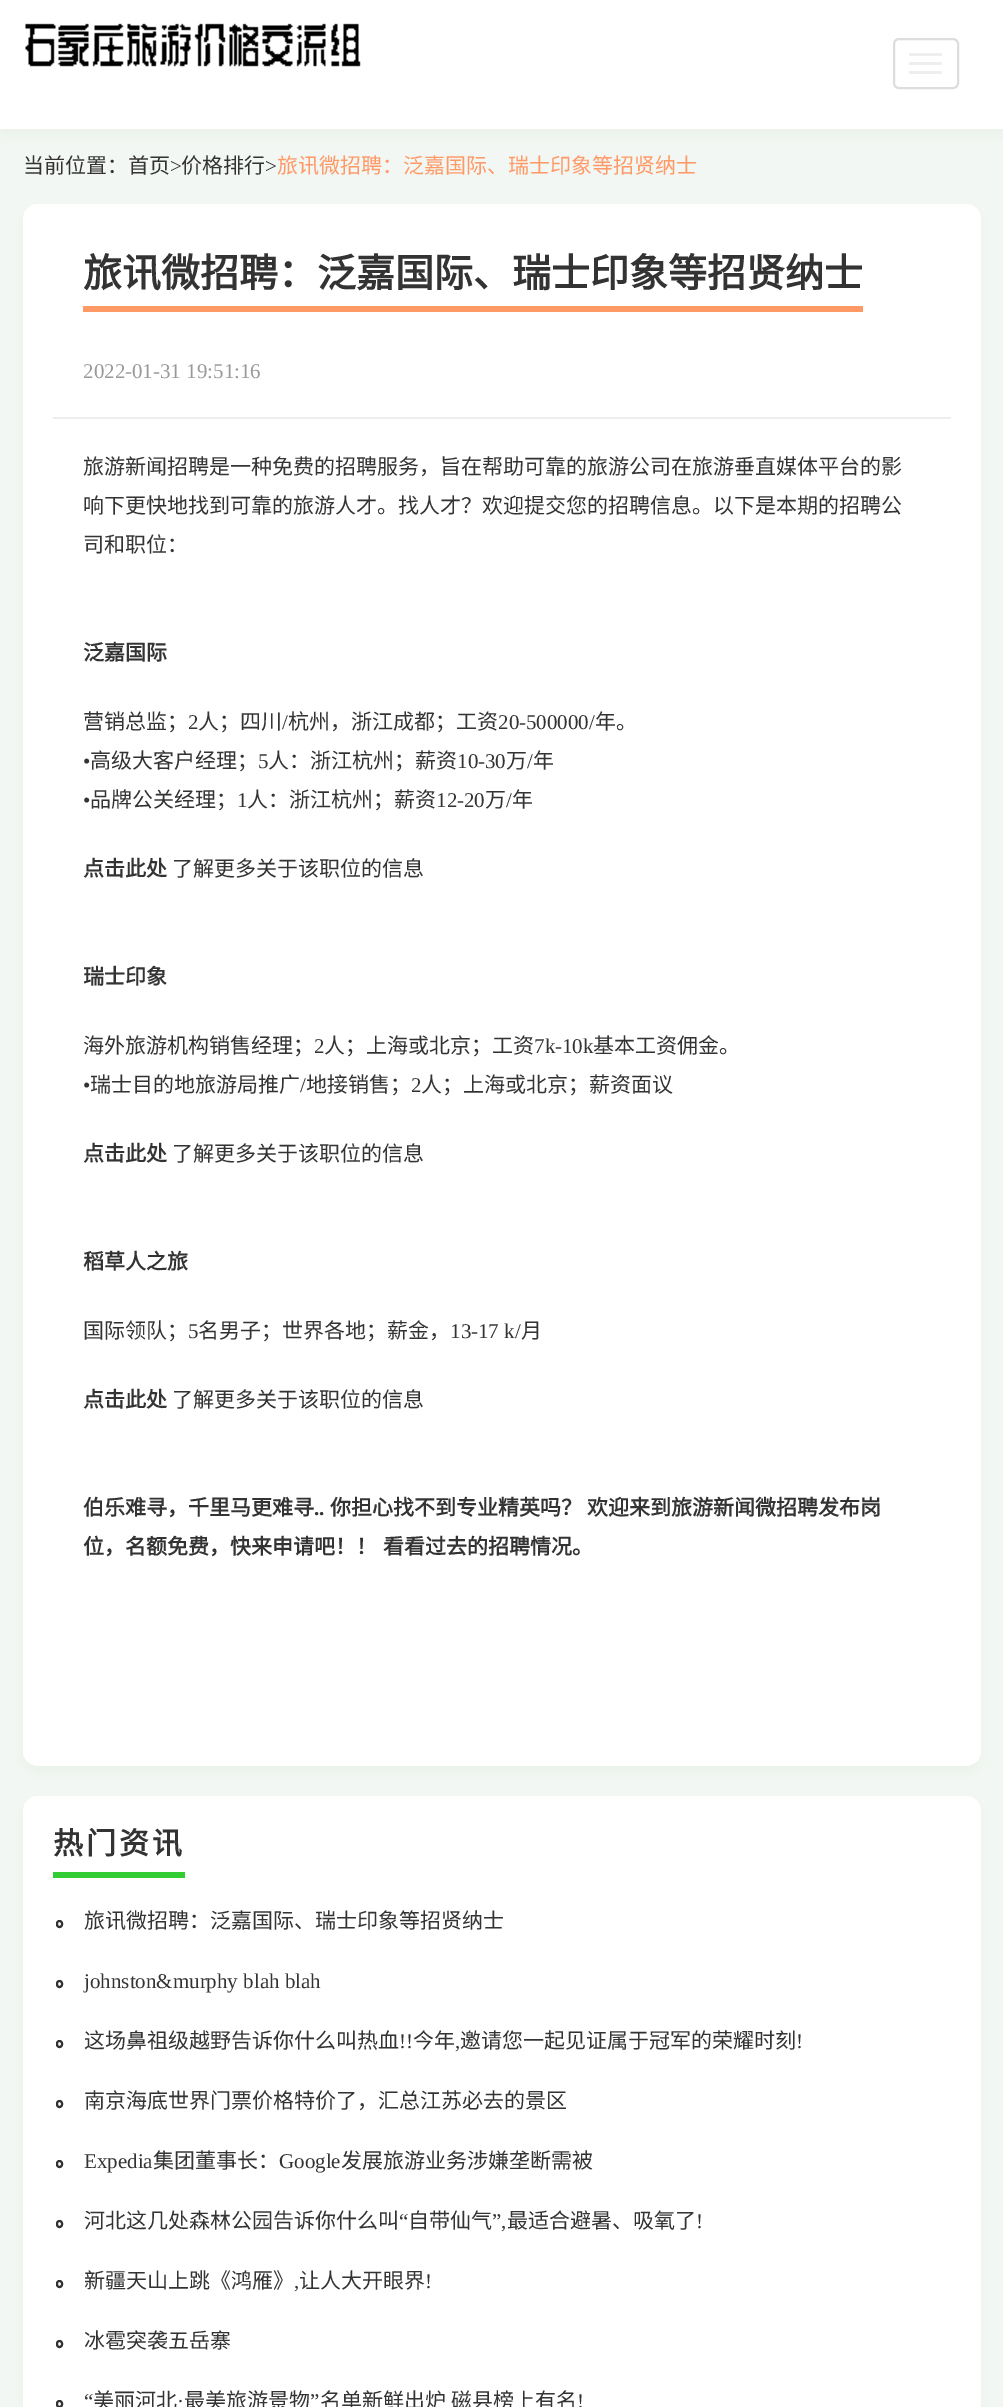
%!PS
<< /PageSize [1003 2407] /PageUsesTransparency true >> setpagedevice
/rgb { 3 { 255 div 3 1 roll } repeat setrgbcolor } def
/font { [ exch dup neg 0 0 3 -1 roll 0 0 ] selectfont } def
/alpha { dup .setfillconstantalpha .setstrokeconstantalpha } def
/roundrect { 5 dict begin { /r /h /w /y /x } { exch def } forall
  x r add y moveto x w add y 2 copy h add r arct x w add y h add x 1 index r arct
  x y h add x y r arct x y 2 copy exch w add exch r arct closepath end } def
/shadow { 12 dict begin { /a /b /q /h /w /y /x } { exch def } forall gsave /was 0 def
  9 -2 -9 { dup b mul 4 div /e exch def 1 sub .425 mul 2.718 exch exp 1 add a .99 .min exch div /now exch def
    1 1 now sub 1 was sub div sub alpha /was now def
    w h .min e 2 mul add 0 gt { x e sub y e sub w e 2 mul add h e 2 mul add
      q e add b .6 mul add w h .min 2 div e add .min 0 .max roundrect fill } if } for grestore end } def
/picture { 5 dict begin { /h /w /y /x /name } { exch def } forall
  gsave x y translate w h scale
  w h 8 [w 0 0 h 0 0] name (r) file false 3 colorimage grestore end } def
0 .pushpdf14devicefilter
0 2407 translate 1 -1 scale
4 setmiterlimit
243 247 243 rgb
0 0 1003 2407 rectfill
233 240 233 rgb
0 6 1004 129 0 6 1 shadow
255 255 255 rgb
0 0 1003 129 rectfill
(img/1.rgb) 25 23 336 44 picture
221 221 221 rgb
2 setlinewidth
894 39 64 49 5 roundrect stroke
238 238 238 rgb
909 53 33 3 1.5 roundrect fill
909 62 33 3 1.5 roundrect fill
909 71 33 3 1.5 roundrect fill
233 240 233 rgb
23 210 958 1562 15 6 1 shadow
255 255 255 rgb
23 204 958 1562 15 roundrect fill
255 153 102 rgb
83 306 780 6 rectfill
238 238 238 rgb
53 417 898 2 rectfill
233 240 233 rgb
23 1802 958 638 15 6 1 shadow
255 255 255 rgb
23 1796 958 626 15 roundrect fill
51 204 51 rgb
53 1872 132 6 rectfill
51 51 51 rgb
57 1921 5 6 2.5 roundrect stroke
57 1981 5 6 2.5 roundrect stroke
57 2041 5 6 2.5 roundrect stroke
57 2101 5 6 2.5 roundrect stroke
57 2161 5 6 2.5 roundrect stroke
57 2221 5 6 2.5 roundrect stroke
57 2281 5 6 2.5 roundrect stroke
57 2341 5 6 2.5 roundrect stroke
57 2401 5 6 2.5 roundrect stroke
/NotoSansCJKSC-Regular 21 font
23 173 moveto (当前位置：首页) show
/LiberationSerif-Regular 21 font
170 173 moveto (>) show
/NotoSansCJKSC-Regular 21 font
181 173 moveto (价格排行) show
/LiberationSerif-Regular 21 font
265 173 moveto (>) show
/NotoSansCJKSC-Regular 21 font
255 153 102 rgb
277 173 moveto (旅讯微招聘：泛嘉国际、瑞士印象等招贤纳士) show
/NotoSansCJKSC-Bold 39 font
51 51 51 rgb
83 287 moveto (旅讯微招聘：泛嘉国际、瑞士印象等招贤纳士) show
/LiberationSerif-Regular 21 font
153 153 153 rgb
83 378 moveto (2022-01-31 19:51:16) show
/NotoSansCJKSC-Regular 21 font
51 51 51 rgb
[
  [(旅游新闻招聘是一种免费的招聘服务，旨在帮助可靠的旅游公司在旅游垂直媒体平台的影) 83 474]
  [(响下更快地找到可靠的旅游人才。找人才？欢迎提交您的招聘信息。以下是本期的招聘公) 83 513]
  [(司和职位：) 83 552]
] { aload pop moveto show } forall
/NotoSansCJKSC-Bold 21 font
83 660 moveto (泛嘉国际) show
/NotoSansCJKSC-Regular 21 font
83 729 moveto (营销总监；) show
/LiberationSerif-Regular 21 font
188 729 moveto (2) show
/NotoSansCJKSC-Regular 21 font
198 729 moveto (人；四川) show
/LiberationSerif-Regular 21 font
282 729 moveto (/) show
/NotoSansCJKSC-Regular 21 font
288 729 moveto (杭州，浙江成都；工资) show
/LiberationSerif-Regular 21 font
498 729 moveto (20-500000/) show
/NotoSansCJKSC-Regular 21 font
595 729 moveto (年。) show
/LiberationSerif-Regular 21 font
83 768 moveto (•) show
/NotoSansCJKSC-Regular 21 font
90 768 moveto (高级大客户经理；) show
/LiberationSerif-Regular 21 font
258 768 moveto (5) show
/NotoSansCJKSC-Regular 21 font
268 768 moveto (人：浙江杭州；薪资) show
/LiberationSerif-Regular 21 font
457 768 moveto (10-30) show
/NotoSansCJKSC-Regular 21 font
506 768 moveto (万) show
/LiberationSerif-Regular 21 font
527 768 moveto (/) show
/NotoSansCJKSC-Regular 21 font
533 768 moveto (年) show
/LiberationSerif-Regular 21 font
83 807 moveto (•) show
/NotoSansCJKSC-Regular 21 font
90 807 moveto (品牌公关经理；) show
/LiberationSerif-Regular 21 font
237 807 moveto (1) show
/NotoSansCJKSC-Regular 21 font
247 807 moveto (人：浙江杭州；薪资) show
/LiberationSerif-Regular 21 font
436 807 moveto (12-20) show
/NotoSansCJKSC-Regular 21 font
485 807 moveto (万) show
/LiberationSerif-Regular 21 font
506 807 moveto (/) show
/NotoSansCJKSC-Regular 21 font
512 807 moveto (年) show
/NotoSansCJKSC-Bold 21 font
83 876 moveto (点击此处) show
/NotoSansCJKSC-Regular 21 font
172 876 moveto (了解更多关于该职位的信息) show
/NotoSansCJKSC-Bold 21 font
83 984 moveto (瑞士印象) show
/NotoSansCJKSC-Regular 21 font
83 1053 moveto (海外旅游机构销售经理；) show
/LiberationSerif-Regular 21 font
314 1053 moveto (2) show
/NotoSansCJKSC-Regular 21 font
324 1053 moveto (人；上海或北京；工资) show
/LiberationSerif-Regular 21 font
534 1053 moveto (7k-10k) show
/NotoSansCJKSC-Regular 21 font
593 1053 moveto (基本工资佣金。) show
/LiberationSerif-Regular 21 font
83 1092 moveto (•) show
/NotoSansCJKSC-Regular 21 font
90 1092 moveto (瑞士目的地旅游局推广) show
/LiberationSerif-Regular 21 font
300 1092 moveto (/) show
/NotoSansCJKSC-Regular 21 font
306 1092 moveto (地接销售；) show
/LiberationSerif-Regular 21 font
411 1092 moveto (2) show
/NotoSansCJKSC-Regular 21 font
421 1092 moveto (人；上海或北京；薪资面议) show
/NotoSansCJKSC-Bold 21 font
83 1161 moveto (点击此处) show
/NotoSansCJKSC-Regular 21 font
172 1161 moveto (了解更多关于该职位的信息) show
/NotoSansCJKSC-Bold 21 font
83 1269 moveto (稻草人之旅) show
/NotoSansCJKSC-Regular 21 font
83 1338 moveto (国际领队；) show
/LiberationSerif-Regular 21 font
188 1338 moveto (5) show
/NotoSansCJKSC-Regular 21 font
198 1338 moveto (名男子；世界各地；薪金，) show
/LiberationSerif-Regular 21 font
450 1338 moveto (13-17 k/) show
/NotoSansCJKSC-Regular 21 font
521 1338 moveto (月) show
/NotoSansCJKSC-Bold 21 font
83 1407 moveto (点击此处) show
/NotoSansCJKSC-Regular 21 font
172 1407 moveto (了解更多关于该职位的信息) show
/NotoSansCJKSC-Bold 21 font
83 1515 moveto (伯乐难寻，千里马更难寻) show
/LiberationSerif-Bold 21 font
314 1515 moveto (..) show
/NotoSansCJKSC-Bold 21 font
330 1515 moveto (你担心找不到专业精英吗？ 欢迎来到旅游新闻微招聘发布岗) show
83 1554 moveto 1 0 32 (位，名额免费，快来申请吧！！ 看看过去的招聘情况。) widthshow
/NotoSansCJKSC-Bold 30 font
53 1854 moveto 3 0 (热门资讯) ashow
/NotoSansCJKSC-Regular 21 font
84 1928 moveto (旅讯微招聘：泛嘉国际、瑞士印象等招贤纳士) show
/LiberationSerif-Regular 21 font
84 1988 moveto (johnston&murphy blah blah) show
/NotoSansCJKSC-Regular 21 font
84 2048 moveto (这场鼻祖级越野告诉你什么叫热血) show
/LiberationSerif-Regular 21 font
399 2048 moveto (!!) show
/NotoSansCJKSC-Regular 21 font
413 2048 moveto (今年) show
/LiberationSerif-Regular 21 font
455 2048 moveto (,) show
/NotoSansCJKSC-Regular 21 font
460 2048 moveto (邀请您一起见证属于冠军的荣耀时刻) show
/LiberationSerif-Regular 21 font
796 2048 moveto (!) show
/NotoSansCJKSC-Regular 21 font
84 2108 moveto (南京海底世界门票价格特价了，汇总江苏必去的景区) show
/LiberationSerif-Regular 21 font
84 2168 moveto (Expedia) show
/NotoSansCJKSC-Regular 21 font
153 2168 moveto (集团董事长：) show
/LiberationSerif-Regular 21 font
279 2168 moveto (Google) show
/NotoSansCJKSC-Regular 21 font
341 2168 moveto (发展旅游业务涉嫌垄断需被) show
84 2228 moveto (河北这几处森林公园告诉你什么叫) show
/LiberationSerif-Regular 21 font
399 2228 moveto (“) show
/NotoSansCJKSC-Regular 21 font
408 2228 moveto (自带仙气) show
/LiberationSerif-Regular 21 font
492 2228 moveto (”,) show
/NotoSansCJKSC-Regular 21 font
507 2228 moveto (最适合避暑、吸氧了) show
/LiberationSerif-Regular 21 font
696 2228 moveto (!) show
/NotoSansCJKSC-Regular 21 font
84 2288 moveto (新疆天山上跳《鸿雁》) show
/LiberationSerif-Regular 21 font
294 2288 moveto (,) show
/NotoSansCJKSC-Regular 21 font
299 2288 moveto (让人大开眼界) show
/LiberationSerif-Regular 21 font
425 2288 moveto (!) show
/NotoSansCJKSC-Regular 21 font
84 2348 moveto (冰雹突袭五岳寨) show
/LiberationSerif-Regular 21 font
84 2408 moveto (“) show
/NotoSansCJKSC-Regular 21 font
93 2408 moveto (美丽河北) show
/LiberationSerif-Regular 21 font
177 2408 moveto (·) show
/NotoSansCJKSC-Regular 21 font
184 2408 moveto (最美旅游景物) show
/LiberationSerif-Regular 21 font
310 2408 moveto (”) show
/NotoSansCJKSC-Regular 21 font
320 2408 moveto (名单新鲜出炉) show
451 2408 moveto (磁县榜上有名) show
/LiberationSerif-Regular 21 font
577 2408 moveto (!) show
.poppdf14devicefilter showpage
